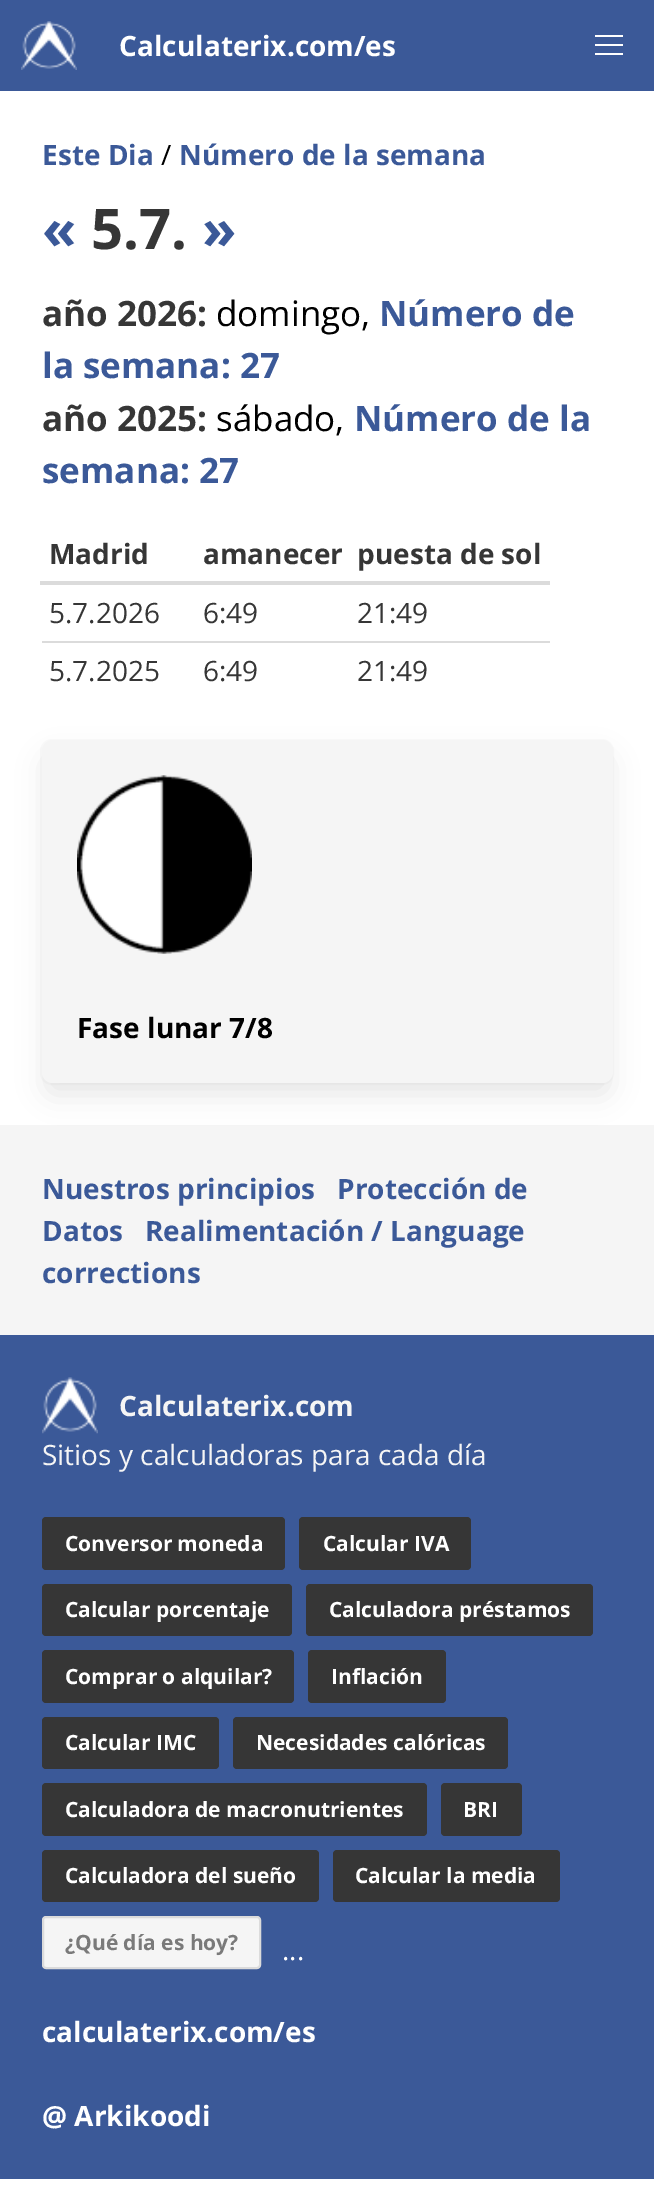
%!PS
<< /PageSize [654 2205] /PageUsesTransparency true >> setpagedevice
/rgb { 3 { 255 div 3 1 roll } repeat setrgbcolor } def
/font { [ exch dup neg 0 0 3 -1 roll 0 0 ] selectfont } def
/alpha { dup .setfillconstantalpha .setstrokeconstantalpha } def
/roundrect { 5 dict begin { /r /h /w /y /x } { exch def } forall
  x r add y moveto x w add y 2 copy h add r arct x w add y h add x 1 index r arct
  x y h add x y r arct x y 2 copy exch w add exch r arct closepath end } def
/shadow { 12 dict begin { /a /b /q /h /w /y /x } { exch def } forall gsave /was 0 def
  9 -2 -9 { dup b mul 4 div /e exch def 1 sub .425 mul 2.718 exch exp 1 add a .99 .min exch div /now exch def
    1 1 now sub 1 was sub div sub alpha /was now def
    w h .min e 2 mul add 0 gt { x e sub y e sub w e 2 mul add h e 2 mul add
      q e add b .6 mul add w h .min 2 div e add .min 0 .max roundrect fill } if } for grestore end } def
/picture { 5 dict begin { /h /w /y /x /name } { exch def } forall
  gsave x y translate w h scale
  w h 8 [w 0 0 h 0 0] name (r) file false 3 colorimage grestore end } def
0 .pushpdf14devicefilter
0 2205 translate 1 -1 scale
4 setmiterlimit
255 255 255 rgb
0 0 654 2205 rectfill
59 89 152 rgb
0 0 654 91 rectfill
(img/1.rgb) 21 21 56 49 picture
[
  [595 35 28 2 255 255 255]
  [595 44 28 2 255 255 255]
  [595 53 28 2 255 255 255]
  [40 581 510 4 219 219 219]
  [42 641 508 2 219 219 219]
] { aload pop rgb rectfill } forall
250 250 250 rgb
2 setlinewidth
41 740 572 344 11 roundrect stroke
245 245 245 rgb
0 1125 654 210 rectfill
0 0 0 rgb
46 758 563 336 7 14 0.1 shadow
245 245 245 rgb
42 740 571 343 11 roundrect fill
(img/2.rgb) 77 775 175 179 picture
59 89 152 rgb
0 1335 654 844 rectfill
(img/3.rgb) 42 1377 56 57 picture
54 54 54 rgb
42 1517 243 53 4 roundrect fill
299 1517 172 53 4 roundrect fill
42 1584 250 52 4 roundrect fill
306 1584 287 52 4 roundrect fill
42 1650 252 53 4 roundrect fill
308 1650 138 53 4 roundrect fill
42 1717 177 52 4 roundrect fill
233 1717 275 52 4 roundrect fill
42 1783 385 53 4 roundrect fill
441 1783 81 53 4 roundrect fill
42 1850 277 52 4 roundrect fill
333 1850 227 52 4 roundrect fill
245 245 245 rgb
43 1917 217 51 3 roundrect gsave fill grestore
219 219 219 rgb
stroke
/OpenSans-Bold 28 font
255 255 255 rgb
119 56 moveto (Calculaterix.com/es) show
59 89 152 rgb
42 165 moveto (Este Dia) show
/OpenSans-Regular 28 font
0 0 0 rgb
161 165 moveto (/) show
/OpenSans-Bold 28 font
59 89 152 rgb
179 165 moveto (Número de la semana) show
/OpenSans-Bold 56 font
42 249 moveto («) show
54 54 54 rgb
91 249 moveto (5.7.) show
59 89 152 rgb
202 249 moveto (») show
/OpenSans-Bold 35 font
54 54 54 rgb
42 326 moveto (año 2026:) show
/OpenSans-Regular 35 font
0 0 0 rgb
216 326 moveto (domingo,) show
/OpenSans-Bold 35 font
59 89 152 rgb
379 326 moveto (Número de) show
42 378 moveto (la semana: 27) show
54 54 54 rgb
42 431 moveto (año 2025:) show
/OpenSans-Regular 35 font
0 0 0 rgb
216 431 moveto (sábado,) show
/OpenSans-Bold 35 font
59 89 152 rgb
354 431 moveto (Número de la) show
42 483 moveto (semana: 27) show
/OpenSans-Bold 28 font
54 54 54 rgb
[
  [(Madrid) 49 564]
  [(amanecer) 203 564]
  [(puesta de sol) 357 564]
] { aload pop moveto show } forall
/OpenSans-Regular 28 font
[
  [(5.7.2026) 49 623]
  [(6:49) 203 623]
  [(21:49) 357 623]
  [(5.7.2025) 49 681]
  [(6:49) 203 681]
  [(21:49) 357 681]
] { aload pop moveto show } forall
/OpenSans-Bold 28 font
0 0 0 rgb
77 1038 moveto (Fase lunar 7/8) show
59 89 152 rgb
[
  [(Nuestros principios) 42 1199]
  [(Protección de) 337 1199]
  [(Datos) 42 1241]
  [(Realimentación / Language) 145 1241]
  [(corrections) 42 1283]
] { aload pop moveto show } forall
245 245 245 rgb
119 1416 moveto (Calculaterix.com) show
/OpenSans-Regular 28 font
42 1465 moveto (Sitios y calculadoras para cada día) show
/OpenSans-Bold 21 font
255 255 255 rgb
[
  [(Conversor moneda) 65 1551]
  [(Calcular IVA) 323 1551]
  [(Calcular porcentaje) 65 1617]
  [(Calculadora préstamos) 329 1617]
  [(Comprar o alquilar?) 65 1684]
  [(Inflación) 331 1684]
  [(Calcular IMC) 65 1750]
  [(Necesidades calóricas) 256 1750]
  [(Calculadora de macronutrientes) 65 1817]
  [(BRI) 463 1817]
  [(Calculadora del sueño) 65 1883]
  [(Calcular la media) 355 1883]
] { aload pop moveto show } forall
122 122 122 rgb
65 1950 moveto (¿Qué día es hoy?) show
/OpenSans-Regular 28 font
255 255 255 rgb
282 1960 moveto (...) show
/OpenSans-Bold 28 font
42 2042 moveto (calculaterix.com/es) show
42 2126 moveto (@ Arkikoodi) show
.poppdf14devicefilter showpage
